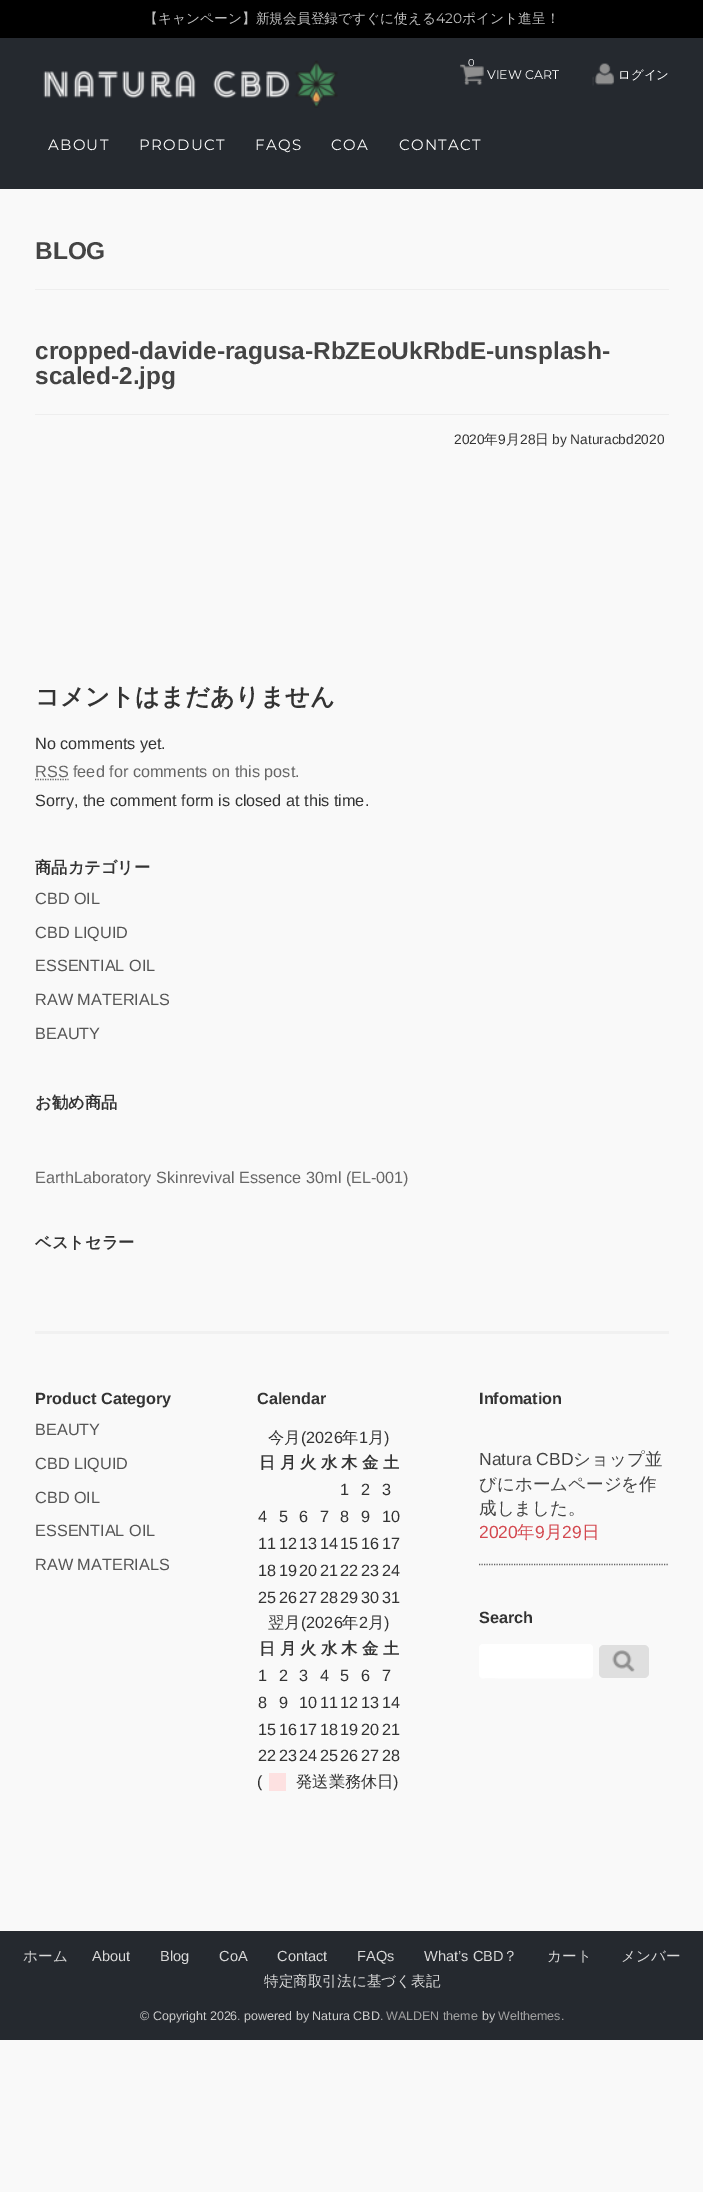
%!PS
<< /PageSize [703 2192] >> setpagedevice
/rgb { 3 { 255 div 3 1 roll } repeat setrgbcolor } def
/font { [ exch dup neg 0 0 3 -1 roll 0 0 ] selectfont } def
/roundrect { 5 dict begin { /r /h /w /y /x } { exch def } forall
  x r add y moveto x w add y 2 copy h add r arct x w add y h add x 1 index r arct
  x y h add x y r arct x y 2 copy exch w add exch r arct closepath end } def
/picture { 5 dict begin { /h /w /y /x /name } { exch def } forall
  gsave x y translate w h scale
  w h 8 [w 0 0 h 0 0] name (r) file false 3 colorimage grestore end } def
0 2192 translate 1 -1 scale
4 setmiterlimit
249 249 249 rgb
0 0 703 2192 rectfill
0 0 0 rgb
0 0 703 38 rectfill
37 41 47 rgb
0 38 703 151 rectfill
(img/1.rgb) 43 60 295 48 picture
(img/2.rgb) 460 64 24 21 picture
(img/3.rgb) 592 63 23 23 picture
238 238 238 rgb
35 289 634 1 rectfill
35 414 634 1 rectfill
102 102 102 rgb
1.2 setlinewidth
[1.25 1.25] 0 setdash
35 779.5 moveto 68.5 779.5 lineto stroke
241 241 241 rgb
35 1331 634 3 rectfill
253 225 225 rgb
269 1773 17 18 rectfill
102 102 102 rgb
479 1564.5 moveto 669 1564.5 lineto stroke
252 252 252 rgb
479 1675 moveto 479 1677 481 1679 483 1679 curveto 589 1679 lineto 591 1679 593 1677 593 1675 curveto 593 1649 lineto 592 1647 lineto 592 1669 lineto 592 1672 593 1677 589 1678 curveto 500 1678 lineto 498 1678 481 1681 479 1675 curveto closepath fill
255 255 255 rgb
479 1644 114 34 4 roundrect fill
223 223 223 rgb
599 1645 50 33 5 roundrect fill
(img/4.rgb) 612 1650 23 22 picture
37 41 47 rgb
0 1931 703 109 rectfill
/WenQuanYiZenHei-Medium 13.75 font
188 188 188 rgb
144 23 moveto (【キャンペーン】新規会員登録ですぐに使える) show
/Montserrat-Thin 13.75 font
436 23 moveto (420) show
/WenQuanYiZenHei-Medium 13.75 font
462 23 moveto (ポイント進呈！) show
/Montserrat-Thin 10 font
255 255 255 rgb
468 66 moveto (0) show
/Montserrat-Thin 12.5 font
487 79 moveto (VIEW CART) show
/WenQuanYiZenHei-Medium 12.5 font
618 79 moveto (ログイン) show
/Montserrat-Thin 15 font
48 150 moveto 1.25 0 (ABOUT) ashow
139 150 moveto 1.25 0 (PRODUCT) ashow
255 150 moveto 1.25 0 (FAQS) ashow
331 150 moveto 1.25 0 (COA) ashow
399 150 moveto 1.25 0 (CONTACT) ashow
/LiberationSans-Bold 24.4 font
68 68 68 rgb
[
  [(BLOG) 35 259]
  [(cropped-davide-ragusa-RbZEoUkRbdE-unsplash-) 35 359]
  [(scaled-2.jpg) 35 384]
] { aload pop moveto show } forall
/LiberationSans-Regular 13.75 font
51 51 51 rgb
454 444 moveto (2020) show
/WenQuanYiZenHei-Medium 13.75 font
484 444 moveto (年) show
/LiberationSans-Regular 13.75 font
498 444 moveto (9) show
/WenQuanYiZenHei-Medium 13.75 font
506 444 moveto (月) show
/LiberationSans-Regular 13.75 font
520 444 moveto (28) show
/WenQuanYiZenHei-Medium 13.75 font
535 444 moveto (日) show
/LiberationSans-Regular 13.75 font
552 444 moveto (by Naturacbd2020) show
/WenQuanYiZenHei-Bold 24.4 font
35 705 moveto (コメントはまだありません) show
/LiberationSans-Regular 16.25 font
35 749 moveto (No comments yet.) show
102 102 102 rgb
35 777 moveto (RSS feed for comments on this post.) show
51 51 51 rgb
35 806 moveto (Sorry, the comment form is closed at this time.) show
/WenQuanYiZenHei-Bold 16.25 font
35 873 moveto (商品カテゴリー) show
/LiberationSans-Regular 16.25 font
85 85 85 rgb
[
  [(CBD OIL) 35 904]
  [(CBD LIQUID) 35 938]
  [(ESSENTIAL OIL) 35 971]
  [(RAW MATERIALS) 35 1005]
  [(BEAUTY) 35 1039]
] { aload pop moveto show } forall
/WenQuanYiZenHei-Bold 16.25 font
51 51 51 rgb
35 1108 moveto (お勧め商品) show
/LiberationSans-Regular 16.25 font
102 102 102 rgb
35 1183 moveto (EarthLaboratory Skinrevival Essence 30ml \(EL-001\)) show
/WenQuanYiZenHei-Bold 16.25 font
51 51 51 rgb
35 1248 moveto (ベストセラー) show
/LiberationSans-Bold 16.25 font
35 1404 moveto (Product Category) show
/LiberationSans-Regular 16.25 font
85 85 85 rgb
[
  [(BEAUTY) 35 1435]
  [(CBD LIQUID) 35 1469]
  [(CBD OIL) 35 1503]
  [(ESSENTIAL OIL) 35 1536]
  [(RAW MATERIALS) 35 1570]
] { aload pop moveto show } forall
/LiberationSans-Bold 16.25 font
51 51 51 rgb
257 1404 moveto (Calendar) show
/WenQuanYiZenHei-Medium 16.25 font
268 1443 moveto (今月) show
/LiberationSans-Regular 16.25 font
301 1443 moveto (\(2026) show
/WenQuanYiZenHei-Medium 16.25 font
342 1443 moveto (年) show
/LiberationSans-Regular 16.25 font
359 1443 moveto (1) show
/WenQuanYiZenHei-Medium 16.25 font
368 1443 moveto (月) show
/LiberationSans-Regular 16.25 font
384 1443 moveto (\)) show
/WenQuanYiZenHei-Bold 16.25 font
[
  [(日) 259 1468]
  [(月) 280 1468]
  [(火) 300 1468]
  [(水) 321 1468]
  [(木) 341 1468]
  [(金) 362 1468]
  [(土) 383 1468]
] { aload pop moveto show } forall
/LiberationSans-Regular 16.25 font
[
  [(1) 340 1495]
  [(2) 361 1495]
  [(3) 382 1495]
  [(4) 258 1522]
  [(5) 279 1522]
  [(6) 299 1522]
  [(7) 320 1522]
  [(8) 340 1522]
  [(9) 361 1522]
  [(10) 382 1522]
  [(11) 258 1549]
  [(12) 279 1549]
  [(13) 299 1549]
  [(14) 320 1549]
  [(15) 340 1549]
  [(16) 361 1549]
  [(17) 382 1549]
  [(18) 258 1576]
  [(19) 279 1576]
  [(20) 299 1576]
  [(21) 320 1576]
  [(22) 340 1576]
  [(23) 361 1576]
  [(24) 382 1576]
  [(25) 258 1603]
  [(26) 279 1603]
  [(27) 299 1603]
  [(28) 320 1603]
  [(29) 340 1603]
  [(30) 361 1603]
  [(31) 382 1603]
] { aload pop moveto show } forall
/WenQuanYiZenHei-Medium 16.25 font
268 1628 moveto (翌月) show
/LiberationSans-Regular 16.25 font
301 1628 moveto (\(2026) show
/WenQuanYiZenHei-Medium 16.25 font
342 1628 moveto (年) show
/LiberationSans-Regular 16.25 font
359 1628 moveto (2) show
/WenQuanYiZenHei-Medium 16.25 font
368 1628 moveto (月) show
/LiberationSans-Regular 16.25 font
384 1628 moveto (\)) show
/WenQuanYiZenHei-Bold 16.25 font
[
  [(日) 259 1654]
  [(月) 280 1654]
  [(火) 300 1654]
  [(水) 321 1654]
  [(木) 341 1654]
  [(金) 362 1654]
  [(土) 383 1654]
] { aload pop moveto show } forall
/LiberationSans-Regular 16.25 font
[
  [(1) 258 1681]
  [(2) 279 1681]
  [(3) 299 1681]
  [(4) 320 1681]
  [(5) 340 1681]
  [(6) 361 1681]
  [(7) 382 1681]
  [(8) 258 1708]
  [(9) 279 1708]
  [(10) 299 1708]
  [(11) 320 1708]
  [(12) 340 1708]
  [(13) 361 1708]
  [(14) 382 1708]
  [(15) 258 1735]
  [(16) 279 1735]
  [(17) 299 1735]
  [(18) 320 1735]
  [(19) 340 1735]
  [(20) 361 1735]
  [(21) 382 1735]
  [(22) 258 1761]
  [(23) 279 1761]
  [(24) 299 1761]
  [(25) 320 1761]
  [(26) 340 1761]
  [(27) 361 1761]
  [(28) 382 1761]
  [(\() 257 1787]
] { aload pop moveto show } forall
/WenQuanYiZenHei-Medium 16.25 font
296 1787 moveto (発送業務休日) show
/LiberationSans-Regular 16.25 font
393 1787 moveto (\)) show
/LiberationSans-Bold 16.25 font
479 1404 moveto (Infomation) show
/LiberationSans-Regular 17.5 font
68 68 68 rgb
479 1465 moveto (Natura CBD) show
/WenQuanYiZenHei-Medium 17.5 font
[
  [(ショップ並) 573 1465]
  [(びにホームページを作) 479 1490]
  [(成しました。) 479 1514]
] { aload pop moveto show } forall
/LiberationSans-Regular 17.5 font
212 73 80 rgb
479 1538 moveto (2020) show
/WenQuanYiZenHei-Medium 17.5 font
517 1538 moveto (年) show
/LiberationSans-Regular 17.5 font
535 1538 moveto (9) show
/WenQuanYiZenHei-Medium 17.5 font
545 1538 moveto (月) show
/LiberationSans-Regular 17.5 font
562 1538 moveto (29) show
/WenQuanYiZenHei-Medium 17.5 font
582 1538 moveto (日) show
/LiberationSans-Bold 16.25 font
51 51 51 rgb
479 1623 moveto (Search) show
/WenQuanYiZenHei-Medium 14.6 font
217 217 217 rgb
23 1961 moveto (ホーム) show
/LiberationSans-Regular 14.6 font
[
  [(About) 92 1961]
  [(Blog) 160 1961]
  [(CoA) 219 1961]
  [(Contact) 277 1961]
  [(FAQs) 357 1961]
  [(What’s CBD) 424 1961]
] { aload pop moveto show } forall
/WenQuanYiZenHei-Medium 14.6 font
[
  [(？) 503 1961]
  [(カート) 547 1961]
  [(メンバー) 621 1961]
  [(特定商取引法に基づく表記) 264 1986]
] { aload pop moveto show } forall
/LiberationSans-Regular 12.5 font
204 204 204 rgb
140 2020 moveto (© Copyright 2026. powered by Natura CBD.) show
160 160 160 rgb
386 2020 moveto (WALDEN theme) show
204 204 204 rgb
482 2020 moveto (by) show
160 160 160 rgb
498 2020 moveto (Welthemes) show
204 204 204 rgb
561 2020 moveto (.) show
showpage
